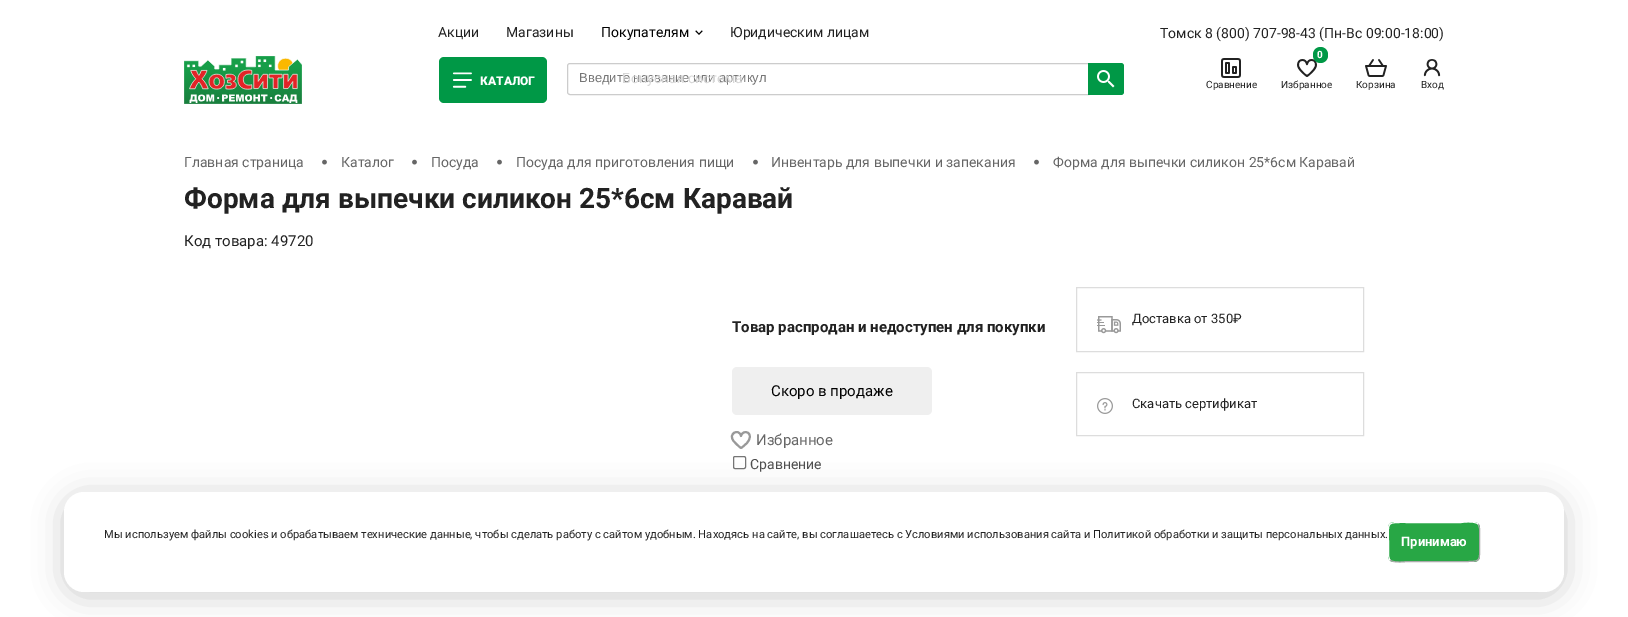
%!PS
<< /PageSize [1628 617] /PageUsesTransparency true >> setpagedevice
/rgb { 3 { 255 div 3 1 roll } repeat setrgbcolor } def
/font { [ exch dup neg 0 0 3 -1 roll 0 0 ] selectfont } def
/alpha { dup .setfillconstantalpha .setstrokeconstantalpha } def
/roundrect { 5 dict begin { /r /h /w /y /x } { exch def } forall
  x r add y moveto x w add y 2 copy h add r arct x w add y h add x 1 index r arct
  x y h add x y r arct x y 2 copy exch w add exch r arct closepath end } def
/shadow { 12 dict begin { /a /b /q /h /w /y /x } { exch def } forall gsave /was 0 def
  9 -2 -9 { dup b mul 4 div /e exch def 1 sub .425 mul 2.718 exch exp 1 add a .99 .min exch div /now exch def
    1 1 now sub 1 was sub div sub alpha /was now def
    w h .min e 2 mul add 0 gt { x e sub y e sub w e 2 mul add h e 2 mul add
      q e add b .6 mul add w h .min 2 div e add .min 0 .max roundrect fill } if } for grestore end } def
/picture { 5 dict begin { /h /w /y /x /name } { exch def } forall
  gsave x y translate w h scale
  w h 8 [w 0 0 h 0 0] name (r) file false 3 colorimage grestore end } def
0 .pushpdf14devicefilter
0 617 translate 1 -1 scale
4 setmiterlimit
255 255 255 rgb
0 0 1628 617 rectfill
(img/1.rgb) 695 30 8 5 picture
(img/2.rgb) 184 56 118 48 picture
0 152 70 rgb
439 57 108 46 5 roundrect fill
(img/3.rgb) 452 72 20 16 picture
204 204 204 rgb
567.5 63.5 524 31 2.5 roundrect stroke
0 152 70 rgb
1088 63 moveto 1121 63 lineto 1122.5 63 1124 64.5 1124 66 curveto 1124 92 lineto 1124 93.5 1122.5 95 1121 95 curveto 1088 95 lineto closepath fill
(img/4.rgb) 1097 70 18 18 picture
(img/5.rgb) 1221 58 20 20 picture
(img/6.rgb) 1297 59 20 18 picture
1313 47 15 16 7.5 roundrect fill
(img/7.rgb) 1365 59 22 18 picture
(img/8.rgb) 1423 59 18 18 picture
(img/9.rgb) 322 159 5 6 picture
(img/9.rgb) 412 159 5 6 picture
(img/9.rgb) 497 159 5 6 picture
(img/9.rgb) 753 159 5 6 picture
(img/9.rgb) 1034 159 5 6 picture
239 239 239 rgb
732 367 200 48 5 roundrect fill
153 153 153 rgb
2 setlinewidth
1 setlinecap
1 setlinejoin
734 441.5 moveto 738.5 446.5 741 448 741 448 curveto 743 447 744.5 445 746.5 443.5 curveto 756 433 743 428 741 436 curveto 739 427.5 727 434 734 441.5 curveto closepath stroke
118 118 118 rgb
1 setlinewidth
0 setlinecap
0 setlinejoin
733.5 456.5 12 12 1.5 roundrect stroke
(img/10.rgb) 1097 316 24 18 picture
221 221 221 rgb
1076.5 287.5 287 64 rectstroke
(img/11.rgb) 1097 398 16 16 picture
1076.5 372.5 287 63 rectstroke
0 0 0 rgb
64 496 1500 100 20 15 0.2 shadow
255 255 255 rgb
64 492 1500 100 20 roundrect fill
40 167 69 rgb
1388 522 92 40 6 roundrect fill
170 170 170 rgb
1478 524 moveto 1480 526.5 1479.5 530 1479.5 532.5 curveto 1479.5 542 lineto 1479.5 563 1482.5 561.5 1460.5 561.5 curveto 1407.5 561.5 lineto 1406 561.5 1394 563.5 1390 560 curveto stroke
255 255 255 rgb
1390 560 moveto 1388 557.5 1388.5 554 1388.5 551.5 curveto 1388.5 542 lineto 1388.5 521 1385.5 522.5 1407.5 522.5 curveto 1460.5 522.5 lineto 1462 522.5 1474 520.5 1478 524 curveto stroke
/Roboto-Regular 14 font
34 34 34 rgb
438 37 moveto (Акции) show
506 37 moveto (Магазины) show
0 0 0 rgb
601 37 moveto (Покупателям) show
34 34 34 rgb
730 37 moveto (Юридическим лицам) show
1160 38 moveto (Томск 8 \(800\) 707-98-43 \(Пн-Вс 09:00-18:00\)) show
/Roboto-Black 12 font
255 255 255 rgb
480 85 moveto (КАТАЛОГ) show
/LiberationSans-Regular 13 font
117 117 117 rgb
579 82 moveto (Введите название или артикул) show
/Roboto-Regular 14 font
215 215 215 rgb
622 83 moveto (Бонусная система) show
/Roboto-Regular 10 font
34 34 34 rgb
1206 88 moveto (Сравнение) show
/Roboto-Bold 10 font
255 255 255 rgb
1317 58 moveto (0) show
/Roboto-Regular 10 font
34 34 34 rgb
[
  [(Избранное) 1281 88]
  [(Корзина) 1356 88]
  [(Вход) 1421 88]
] { aload pop moveto show } forall
/Roboto-Regular 14 font
102 102 102 rgb
[
  [(Главная страница) 184 167]
  [(Каталог) 341 167]
  [(Посуда) 431 167]
  [(Посуда для приготовления пищи) 516 167]
  [(Инвентарь для выпечки и запекания) 771 167]
  [(Форма для выпечки силикон 25*6см Каравай) 1053 167]
] { aload pop moveto show } forall
/Roboto-Bold 28 font
34 34 34 rgb
184 208 moveto (Форма для выпечки силикон 25*6см Каравай) show
/Roboto-Regular 15 font
184 246 moveto (Код товара: 49720) show
/Roboto-Bold 15 font
732 332 moveto (Товар распродан и недоступен для покупки) show
/Roboto-Regular 15 font
0 0 0 rgb
771 396 moveto (Скоро в продаже) show
102 102 102 rgb
756 445 moveto (Избранное) show
/Roboto-Regular 14 font
78 78 78 rgb
750 469 moveto (Сравнение) show
/Roboto-Regular 13 font
34 34 34 rgb
1132 323 moveto (Доставка от 350₽) show
1132 408 moveto (Скачать сертификат) show
/Roboto-Regular 11.2 font
[
  [(Мы используем файлы cookies и обрабатываем технические данные, чтобы сделать работу с сайтом удобным. Находясь на сайте, вы соглашаетесь с) 104 538]
  [(Условиями использования сайта) 905 538]
  [(и) 1084 538]
  [(Политикой обработки и защиты персональных данных.) 1093 538]
] { aload pop moveto show } forall
/Roboto-Bold 13 font
255 255 255 rgb
1401 546 moveto (Принимаю) show
.poppdf14devicefilter showpage
